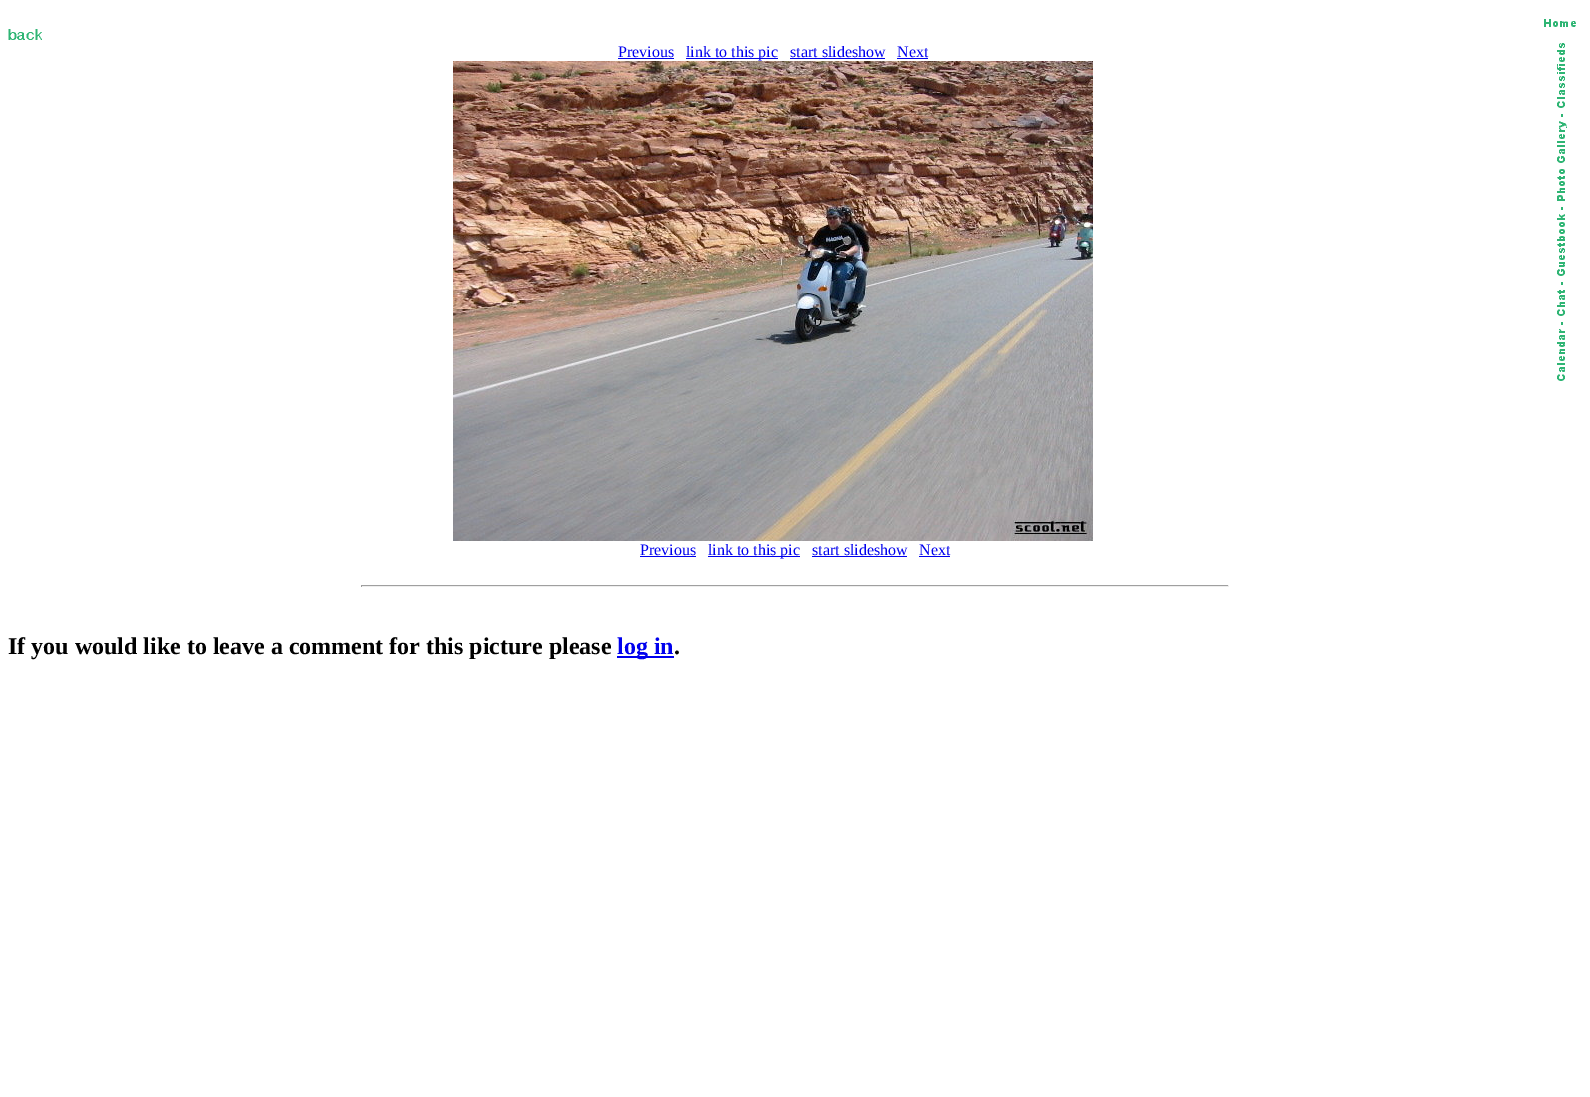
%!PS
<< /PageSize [1590 1097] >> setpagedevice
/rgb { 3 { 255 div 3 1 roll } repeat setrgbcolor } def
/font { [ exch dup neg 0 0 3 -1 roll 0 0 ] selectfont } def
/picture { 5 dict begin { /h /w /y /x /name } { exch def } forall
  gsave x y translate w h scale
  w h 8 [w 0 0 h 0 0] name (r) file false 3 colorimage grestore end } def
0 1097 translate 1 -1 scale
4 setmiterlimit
255 255 255 rgb
0 0 1590 1097 rectfill
(img/1.rgb) 8 29 34 11 picture
(img/2.rgb) 1544 19 32 8 picture
(img/3.rgb) 1557 43 10 338 picture
[
  [618 58 56 1 0 0 238]
  [686 58 92 1 0 0 238]
  [790 58 95 1 0 0 238]
  [897 58 31 1 0 0 238]
] { aload pop rgb rectfill } forall
(img/4.rgb) 453 61 640 480 picture
[
  [640 556 56 1 0 0 238]
  [708 556 92 1 0 0 238]
  [812 556 95 1 0 0 238]
  [919 556 31 1 0 0 238]
  [361 585 868 1 159 159 159]
  [1228 585 1 2 238 238 238]
  [361 586 868 1 238 238 238]
  [361 585 1 2 159 159 159]
  [617 656 57 2 0 0 238]
] { aload pop rgb rectfill } forall
/LiberationSerif-Regular 16 font
[
  [(Previous) 618 57]
  [(link to this pic) 686 57]
  [(start slideshow) 790 57]
  [(Next) 897 57]
  [(Previous) 640 555]
  [(link to this pic) 708 555]
  [(start slideshow) 812 555]
  [(Next) 919 555]
] { aload pop moveto show } forall
/LiberationSerif-Bold 24 font
0 0 0 rgb
8 654 moveto (If you would like to leave a comment for this picture please) show
0 0 238 rgb
617 654 moveto (log in) show
0 0 0 rgb
674 654 moveto (.) show
showpage
